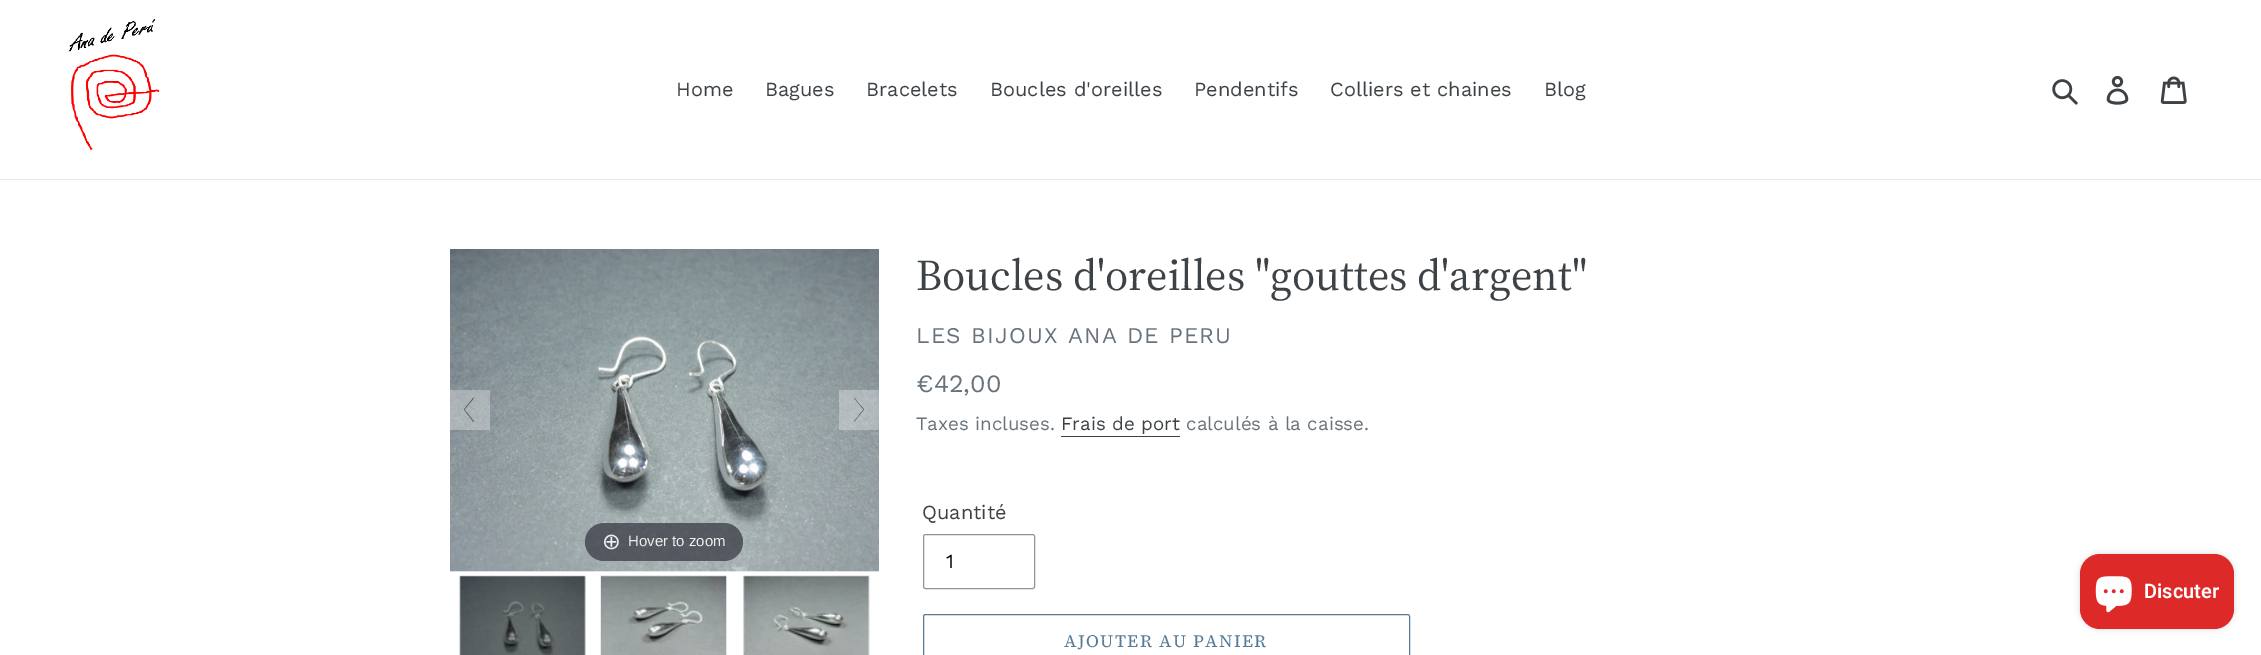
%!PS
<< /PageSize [2261 655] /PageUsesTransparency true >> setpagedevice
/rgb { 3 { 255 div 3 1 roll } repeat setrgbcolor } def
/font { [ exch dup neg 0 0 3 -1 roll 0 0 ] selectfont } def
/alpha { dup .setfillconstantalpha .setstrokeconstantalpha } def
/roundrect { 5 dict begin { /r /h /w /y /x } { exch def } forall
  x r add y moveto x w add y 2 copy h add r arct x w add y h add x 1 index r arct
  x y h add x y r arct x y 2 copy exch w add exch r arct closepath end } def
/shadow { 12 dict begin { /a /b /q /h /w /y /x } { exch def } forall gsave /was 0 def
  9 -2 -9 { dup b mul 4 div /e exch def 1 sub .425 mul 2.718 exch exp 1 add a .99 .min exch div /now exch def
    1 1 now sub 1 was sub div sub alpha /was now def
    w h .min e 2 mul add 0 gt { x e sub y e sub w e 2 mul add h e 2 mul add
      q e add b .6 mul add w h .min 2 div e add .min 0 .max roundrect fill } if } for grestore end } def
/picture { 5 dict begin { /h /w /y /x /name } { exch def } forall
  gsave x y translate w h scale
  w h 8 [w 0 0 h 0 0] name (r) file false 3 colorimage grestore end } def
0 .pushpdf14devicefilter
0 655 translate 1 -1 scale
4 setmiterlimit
255 255 255 rgb
0 0 2261 655 rectfill
232 233 235 rgb
0 179 2261 1 rectfill
(img/1.rgb) 68 19 92 131 picture
(img/2.rgb) 2052 79 26 26 picture
(img/3.rgb) 2106 76 23 29 picture
(img/4.rgb) 2160 76 27 28 picture
(img/5.rgb) 450 249 429 323 picture
0.3 alpha
255 255 255 rgb
450 390 40 40 rectfill
0.5 alpha
0 0 0 rgb
464 409.5 moveto 473.5 397.5 lineto 474 398 lineto 464.5 409.5 lineto 474 421.5 lineto 473.5 422 lineto closepath fill
0.3 alpha
255 255 255 rgb
839 390 40 40 rectfill
0.5 alpha
0 0 0 rgb
864 409.5 moveto 854 422 lineto 854 421.5 lineto 863.5 409.5 lineto 854 398 lineto 854 397.5 lineto closepath fill
0.7 alpha
49 51 61 rgb
585 523 158 38 19 roundrect fill
1 alpha
0 0 0 rgb
460 576 125 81 0 0.5 0.3 shadow
(img/6.rgb) 459 576 127 79 picture
601 576 125 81 0 0.5 0.3 shadow
(img/7.rgb) 601 576 126 79 picture
744 576 125 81 0 0.5 0.3 shadow
(img/8.rgb) 743 576 126 79 picture
61 66 70 rgb
1061 436 119 1 rectfill
148 148 148 rgb
923.5 534.5 111 54 2 roundrect stroke
85 123 151 rgb
923.5 614.5 486 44 2 roundrect stroke
0 0 0 rgb
2080 554 154 75 20 3 0.15 shadow
222 41 41 rgb
2080 554 154 75 20 roundrect fill
(img/9.rgb) 2095 576 37 37 picture
/WorkSans-Regular 20 font
61 66 70 rgb
[
  [(Home) 676 96]
  [(Bagues) 765 96]
  [(Bracelets) 866 96]
  [(Boucles d'oreilles) 990 96]
  [(Pendentifs) 1194 96]
  [(Colliers et chaines) 1330 96]
  [(Blog) 1544 96]
] { aload pop moveto show } forall
/DejaVuSans-Regular 22.5 font
238 238 238 rgb
602 549 moveto (⊕) show
/LiberationSans-Regular 15 font
628 546 moveto (Hover to zoom) show
/SourceSerif4-Regular 43.75 font
61 66 70 rgb
916 290 moveto (Boucles d'oreilles "gouttes d'argent") show
/WorkSans-Regular 22.5 font
105 114 123 rgb
916 343 moveto 1.25 0 (LES BIJOUX ANA DE PERU) ashow
/WorkSans-Regular 25 font
916 392 moveto (€42,00) show
/WorkSans-Regular 18.75 font
916 430 moveto (Taxes incluses.) show
61 66 70 rgb
1061 430 moveto (Frais de port) show
105 114 123 rgb
1186 430 moveto (calculés à la caisse.) show
/WorkSans-Regular 20 font
61 66 70 rgb
922 519 moveto (Quantité) show
0 0 0 rgb
946 568 moveto (1) show
/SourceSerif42-Regular 17.5 font
85 123 151 rgb
1064 647 moveto 1.4 0 (AJOUTER AU PANIER) ashow
/Roboto-SemiBold 20 font
255 255 255 rgb
2144 598 moveto (Discuter) show
.poppdf14devicefilter showpage
